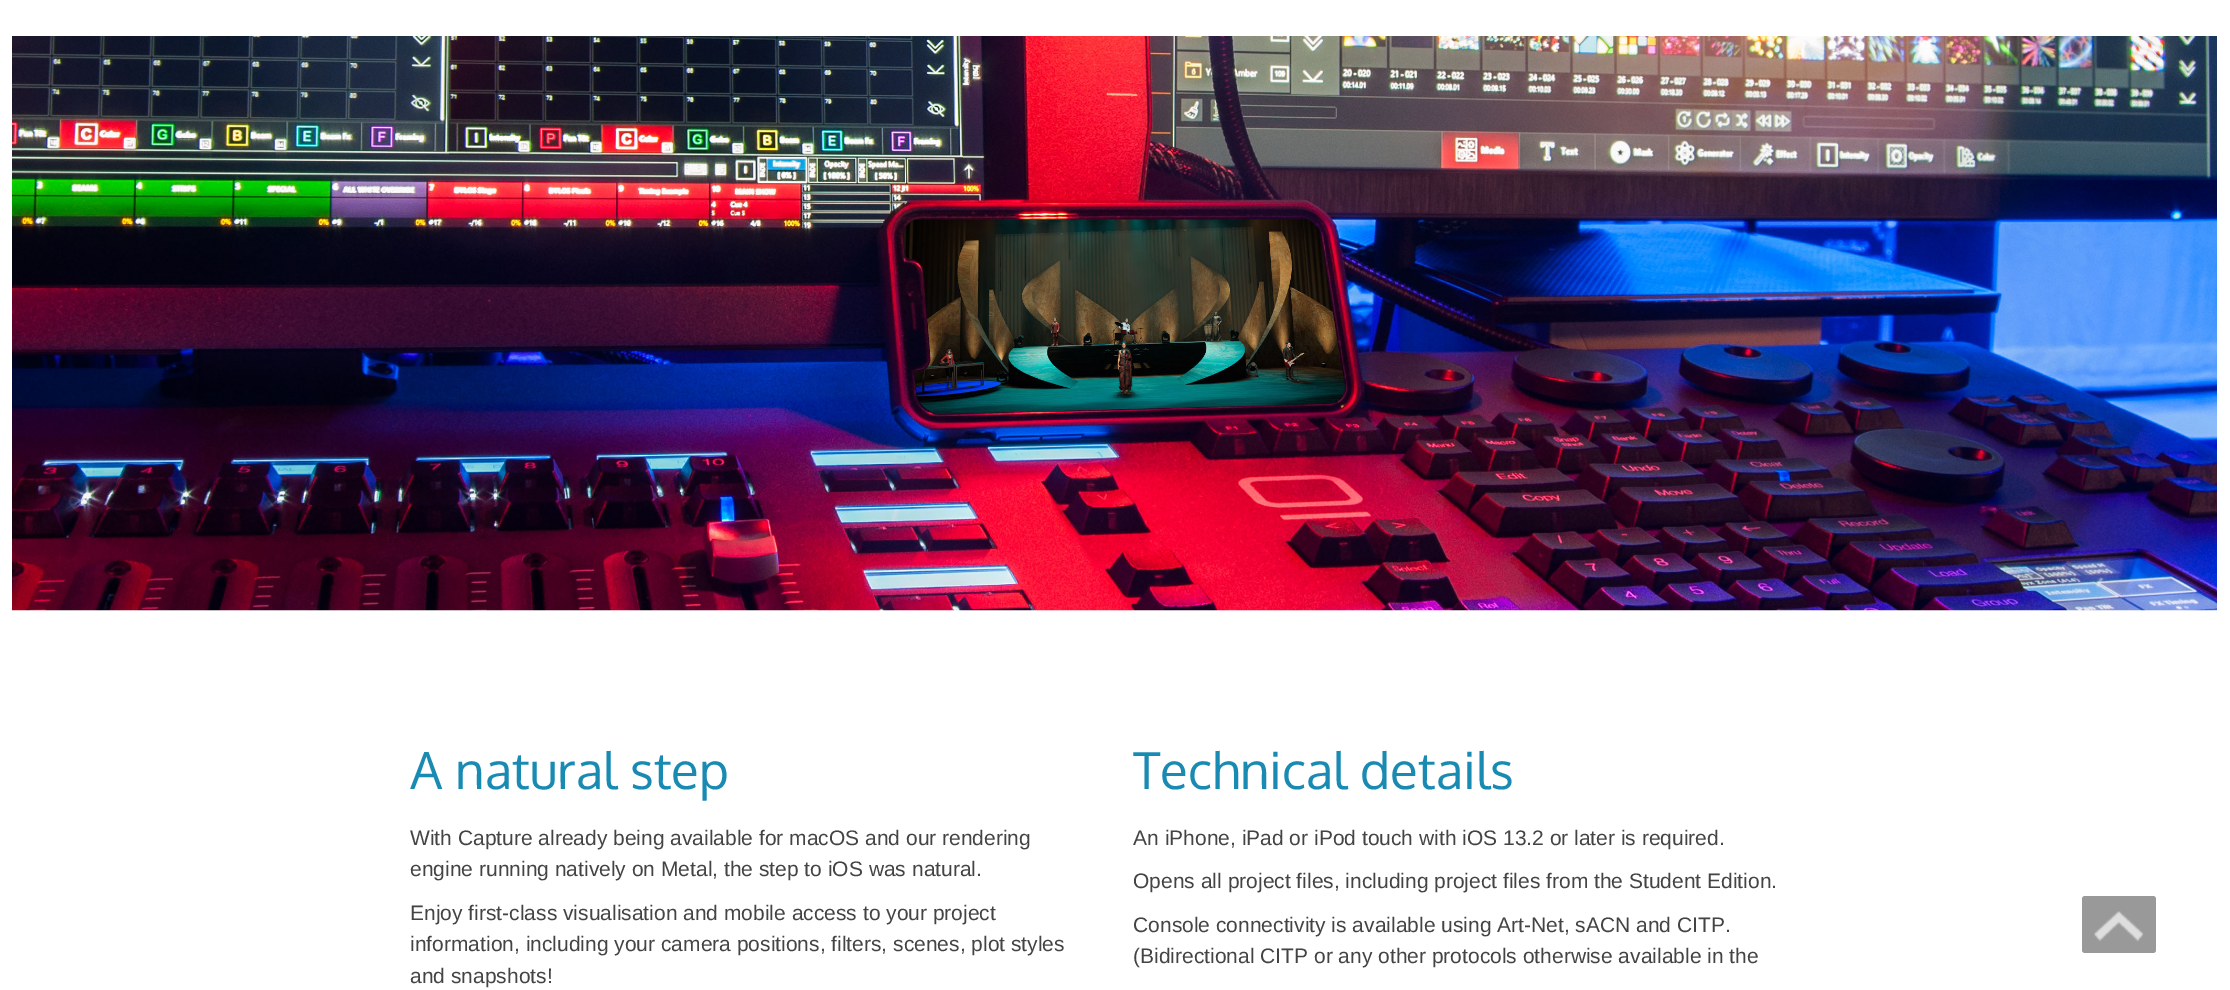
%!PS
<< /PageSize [2230 990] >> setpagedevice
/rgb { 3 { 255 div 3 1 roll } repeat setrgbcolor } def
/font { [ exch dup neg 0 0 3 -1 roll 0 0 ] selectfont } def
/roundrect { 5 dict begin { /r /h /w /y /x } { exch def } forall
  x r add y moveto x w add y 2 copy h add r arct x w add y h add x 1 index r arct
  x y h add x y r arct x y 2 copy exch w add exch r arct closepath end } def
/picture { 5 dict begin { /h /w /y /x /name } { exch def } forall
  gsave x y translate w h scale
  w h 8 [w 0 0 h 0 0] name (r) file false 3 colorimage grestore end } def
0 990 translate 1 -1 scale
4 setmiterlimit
255 255 255 rgb
0 0 2230 990 rectfill
(img/1.rgb) 12 36 2205 575 picture
153 153 153 rgb
2082 896 74 57 3 roundrect fill
(img/2.rgb) 2094 911 49 31 picture
/Oxygen-Regular 51 font
25 139 179 rgb
410 789 moveto (A natural step) show
/LiberationSans-Regular 21 font
68 68 68 rgb
[
  [(With Capture already being available for macOS and our rendering) 410 845]
  [(engine running natively on Metal, the step to iOS was natural.) 410 876]
  [(Enjoy first-class visualisation and mobile access to your project) 410 920]
  [(information, including your camera positions, filters, scenes, plot styles) 410 951]
  [(and snapshots!) 410 983]
] { aload pop moveto show } forall
/Oxygen-Regular 51 font
25 139 179 rgb
1133 789 moveto (Technical details) show
/LiberationSans-Regular 21 font
68 68 68 rgb
[
  [(An iPhone, iPad or iPod touch with iOS 13.2 or later is required.) 1133 845]
  [(Opens all project files, including project files from the Student Edition.) 1133 888]
  [(Console connectivity is available using Art-Net, sACN and CITP.) 1133 932]
  [(\(Bidirectional CITP or any other protocols otherwise available in the) 1133 963]
] { aload pop moveto show } forall
showpage
